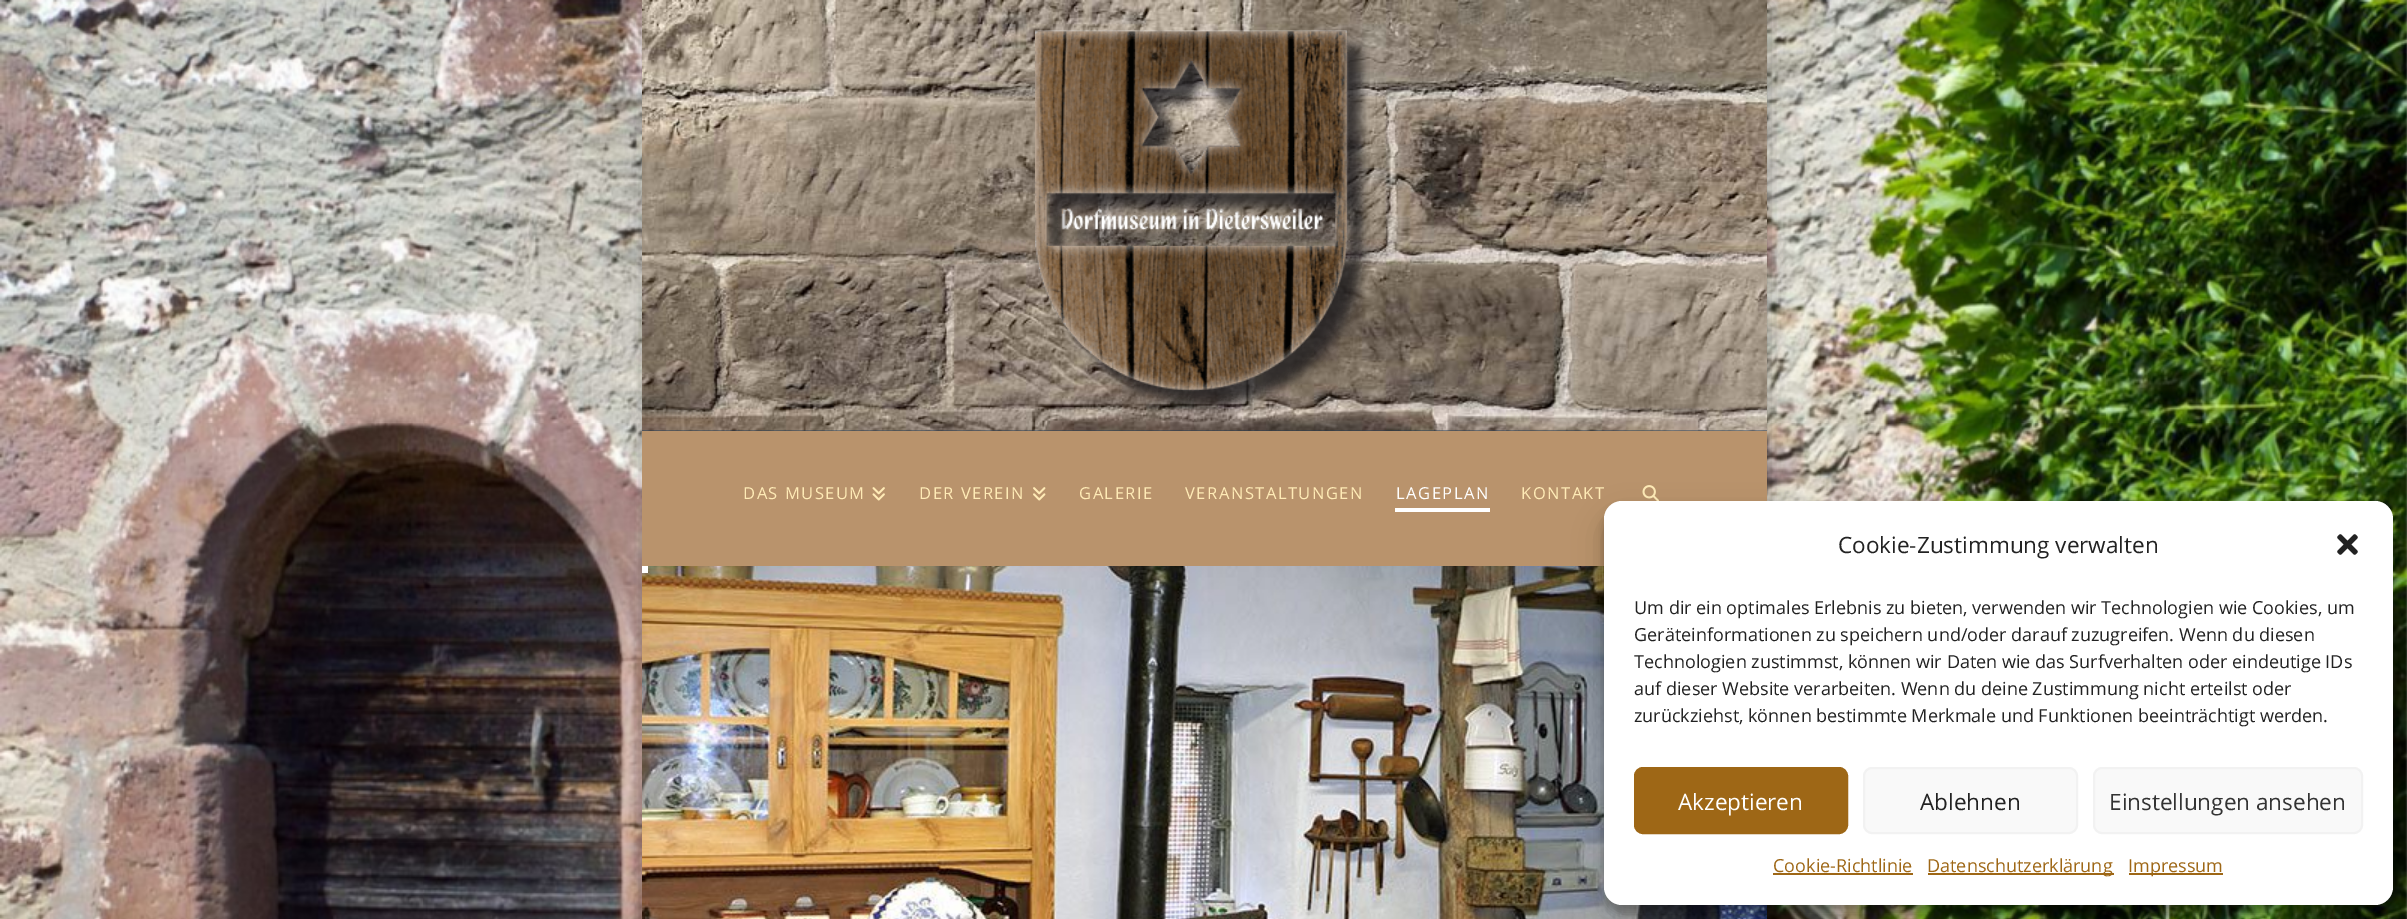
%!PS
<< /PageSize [2407 919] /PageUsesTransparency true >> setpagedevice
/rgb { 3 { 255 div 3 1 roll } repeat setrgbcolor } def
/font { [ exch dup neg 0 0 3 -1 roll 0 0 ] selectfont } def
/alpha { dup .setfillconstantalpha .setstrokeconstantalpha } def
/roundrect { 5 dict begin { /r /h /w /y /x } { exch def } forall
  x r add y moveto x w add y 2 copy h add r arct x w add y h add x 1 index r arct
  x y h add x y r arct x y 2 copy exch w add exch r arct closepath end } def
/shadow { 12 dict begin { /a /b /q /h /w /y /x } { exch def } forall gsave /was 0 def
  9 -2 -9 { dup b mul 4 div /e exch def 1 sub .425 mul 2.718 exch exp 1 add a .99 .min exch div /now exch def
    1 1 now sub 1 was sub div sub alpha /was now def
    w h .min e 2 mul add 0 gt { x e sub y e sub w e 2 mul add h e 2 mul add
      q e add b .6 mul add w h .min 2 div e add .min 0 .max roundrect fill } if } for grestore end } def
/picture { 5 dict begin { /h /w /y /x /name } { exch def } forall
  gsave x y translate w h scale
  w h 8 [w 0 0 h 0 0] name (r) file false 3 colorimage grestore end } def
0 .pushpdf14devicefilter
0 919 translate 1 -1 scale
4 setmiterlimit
255 255 255 rgb
0 0 2407 919 rectfill
(img/1.rgb) 0 0 2407 919 picture
0 0 0 rgb
645 5 1125 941 0 9 0.27 shadow
44 62 80 rgb
642 430 1125 1 rectfill
(img/2.rgb) 642 0 1125 431 picture
(img/3.rgb) 1035 30 335 383 picture
185 147 108 rgb
642 431 1125 135 rectfill
(img/4.rgb) 872 487 13 14 picture
(img/5.rgb) 1033 487 13 14 picture
255 255 255 rgb
1395 508 moveto 1395 512 lineto 1490 512 lineto 1490 488 lineto 1490 508 lineto closepath fill
(img/6.rgb) 1642 485 17 16 picture
(img/7.rgb) 642 566 1125 353 picture
642 566 6 7 rectfill
0 0 0 rgb
1604 510 789 404 18 4.5 0.23 shadow
1604 516 789 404 18 15 0.19 shadow
255 255 255 rgb
1604 501 789 404 18 roundrect fill
(img/8.rgb) 2337 534 21 21 picture
158 103 22 rgb
1635 768 212 65 8 roundrect gsave fill grestore
2 setlinewidth
stroke
249 249 249 rgb
1864 768 213 65 8 roundrect gsave fill grestore
242 242 242 rgb
stroke
249 249 249 rgb
2094 768 268 65 8 roundrect gsave fill grestore
242 242 242 rgb
stroke
[
  [1773 873 140 2 158 103 22]
  [1928 873 186 2 158 103 22]
  [2129 873 94 2 158 103 22]
] { aload pop rgb rectfill } forall
/OpenSans-Regular 16.5 font
255 235 182 rgb
743 499 moveto 1.5 0 (DAS MUSEUM) ashow
919 499 moveto 1.5 0 (DER VEREIN) ashow
1079 499 moveto 1.5 0 (GALERIE) ashow
1185 499 moveto 1.5 0 (VERANSTALTUNGEN) ashow
255 255 255 rgb
1396 499 moveto 1.5 0 (LAGEPLAN) ashow
255 235 182 rgb
1521 499 moveto 1.5 0 (KONTAKT) ashow
/OpenSans-Regular 22.5 font
34 34 34 rgb
1838 553 moveto (Cookie-Zustimmung verwalten) show
/OpenSans-Regular 18 font
[
  [(Um dir ein optimales Erlebnis zu bieten, verwenden wir Technologien wie Cookies, um) 1634 614]
  [(Geräteinformationen zu speichern und/oder darauf zuzugreifen. Wenn du diesen) 1634 641]
  [(Technologien zustimmst, können wir Daten wie das Surfverhalten oder eindeutige IDs) 1634 668]
  [(auf dieser Website verarbeiten. Wenn du deine Zustimmung nicht erteilst oder) 1634 695]
  [(zurückziehst, können bestimmte Merkmale und Funktionen beeinträchtigt werden.) 1634 722]
] { aload pop moveto show } forall
/OpenSans-Regular 22.5 font
255 255 255 rgb
1678 810 moveto (Akzeptieren) show
34 34 34 rgb
1920 810 moveto (Ablehnen) show
51 51 51 rgb
2109 810 moveto (Einstellungen ansehen) show
/OpenSans-Regular 18 font
158 103 22 rgb
[
  [(Cookie-Richtlinie) 1773 872]
  [(Datenschutzerklärung) 1927 872]
  [(Impressum) 2128 872]
] { aload pop moveto show } forall
.poppdf14devicefilter showpage
